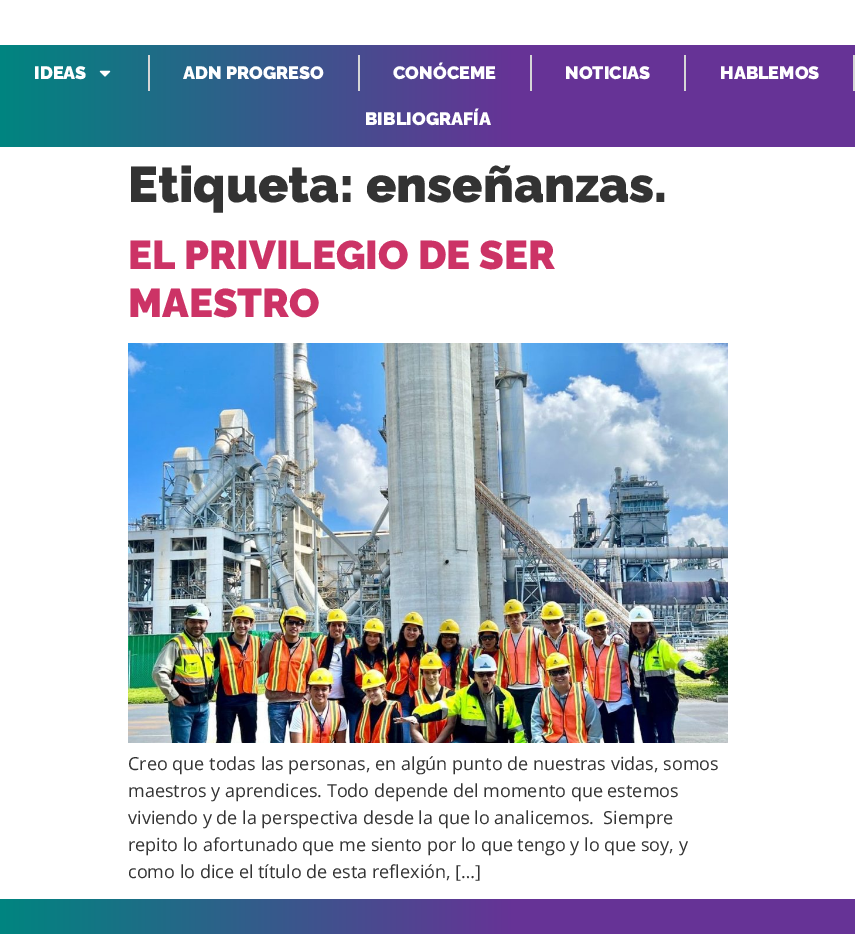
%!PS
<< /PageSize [855 934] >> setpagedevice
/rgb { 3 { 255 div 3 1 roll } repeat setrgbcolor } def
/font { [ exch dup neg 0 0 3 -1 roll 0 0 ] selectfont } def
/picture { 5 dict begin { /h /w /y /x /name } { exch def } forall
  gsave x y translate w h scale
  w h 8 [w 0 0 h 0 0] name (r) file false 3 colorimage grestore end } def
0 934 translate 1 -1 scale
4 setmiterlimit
255 255 255 rgb
0 0 855 934 rectfill
gsave 0 45 moveto 855 45 lineto 855 147 lineto 0 147 lineto closepath clip newpath
<< /ShadingType 2 /ColorSpace /DeviceRGB /Coords [0 96 855 96] /Extend [true true] /Function << /FunctionType 3 /Domain [0 1] /Functions [<< /FunctionType 2 /Domain [0 1] /C0 [0 0.522 0.502] /C1 [0.4 0.2 0.588] /N 1 >> << /FunctionType 2 /Domain [0 1] /C0 [0.4 0.2 0.588] /C1 [0.4 0.2 0.588] /N 1 >>] /Bounds [0.6] /Encode [0 1 0 1] >> >> shfill grestore
(img/1.rgb) 99 70 12 7 picture
[
  [148 55 2 36 214 214 214]
  [358 55 2 36 214 214 214]
  [530 55 2 36 214 214 214]
  [684 55 2 36 214 214 214]
  [853 55 2 36 214 214 214]
] { aload pop rgb rectfill } forall
(img/2.rgb) 128 343 600 400 picture
gsave 0 899 moveto 855 899 lineto 855 934 lineto 0 934 lineto closepath clip newpath
<< /ShadingType 2 /ColorSpace /DeviceRGB /Coords [0 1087 855 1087] /Extend [true true] /Function << /FunctionType 3 /Domain [0 1] /Functions [<< /FunctionType 2 /Domain [0 1] /C0 [0 0.522 0.502] /C1 [0.4 0.2 0.588] /N 1 >> << /FunctionType 2 /Domain [0 1] /C0 [0.4 0.2 0.588] /C1 [0.4 0.2 0.588] /N 1 >>] /Bounds [0.6] /Encode [0 1 0 1] >> >> shfill grestore
/Raleway-Black 18 font
255 255 255 rgb
[
  [(IDEAS) 34 79]
  [(ADN PROGRESO) 183 79]
  [(CONÓCEME) 393 79]
  [(NOTICIAS) 565 79]
  [(HABLEMOS) 720 79]
  [(BIBLIOGRAFÍA) 365 125]
] { aload pop moveto show } forall
/Raleway-Black 50 font
51 51 51 rgb
128 202 moveto (Etiqueta: enseñanzas.) show
/Raleway-Black 40 font
204 51 102 rgb
128 269 moveto (EL PRIVILEGIO DE SER) show
128 317 moveto (MAESTRO) show
/OpenSans-Regular 18 font
51 51 51 rgb
[
  [(Creo que todas las personas, en algún punto de nuestras vidas, somos) 128 770]
  [(maestros y aprendices. Todo depende del momento que estemos) 128 797]
  [(viviendo y de la perspectiva desde la que lo analicemos.  Siempre) 128 824]
  [(repito lo afortunado que me siento por lo que tengo y lo que soy, y) 128 851]
  [(como lo dice el título de esta reflexión, […]) 128 878]
] { aload pop moveto show } forall
showpage
